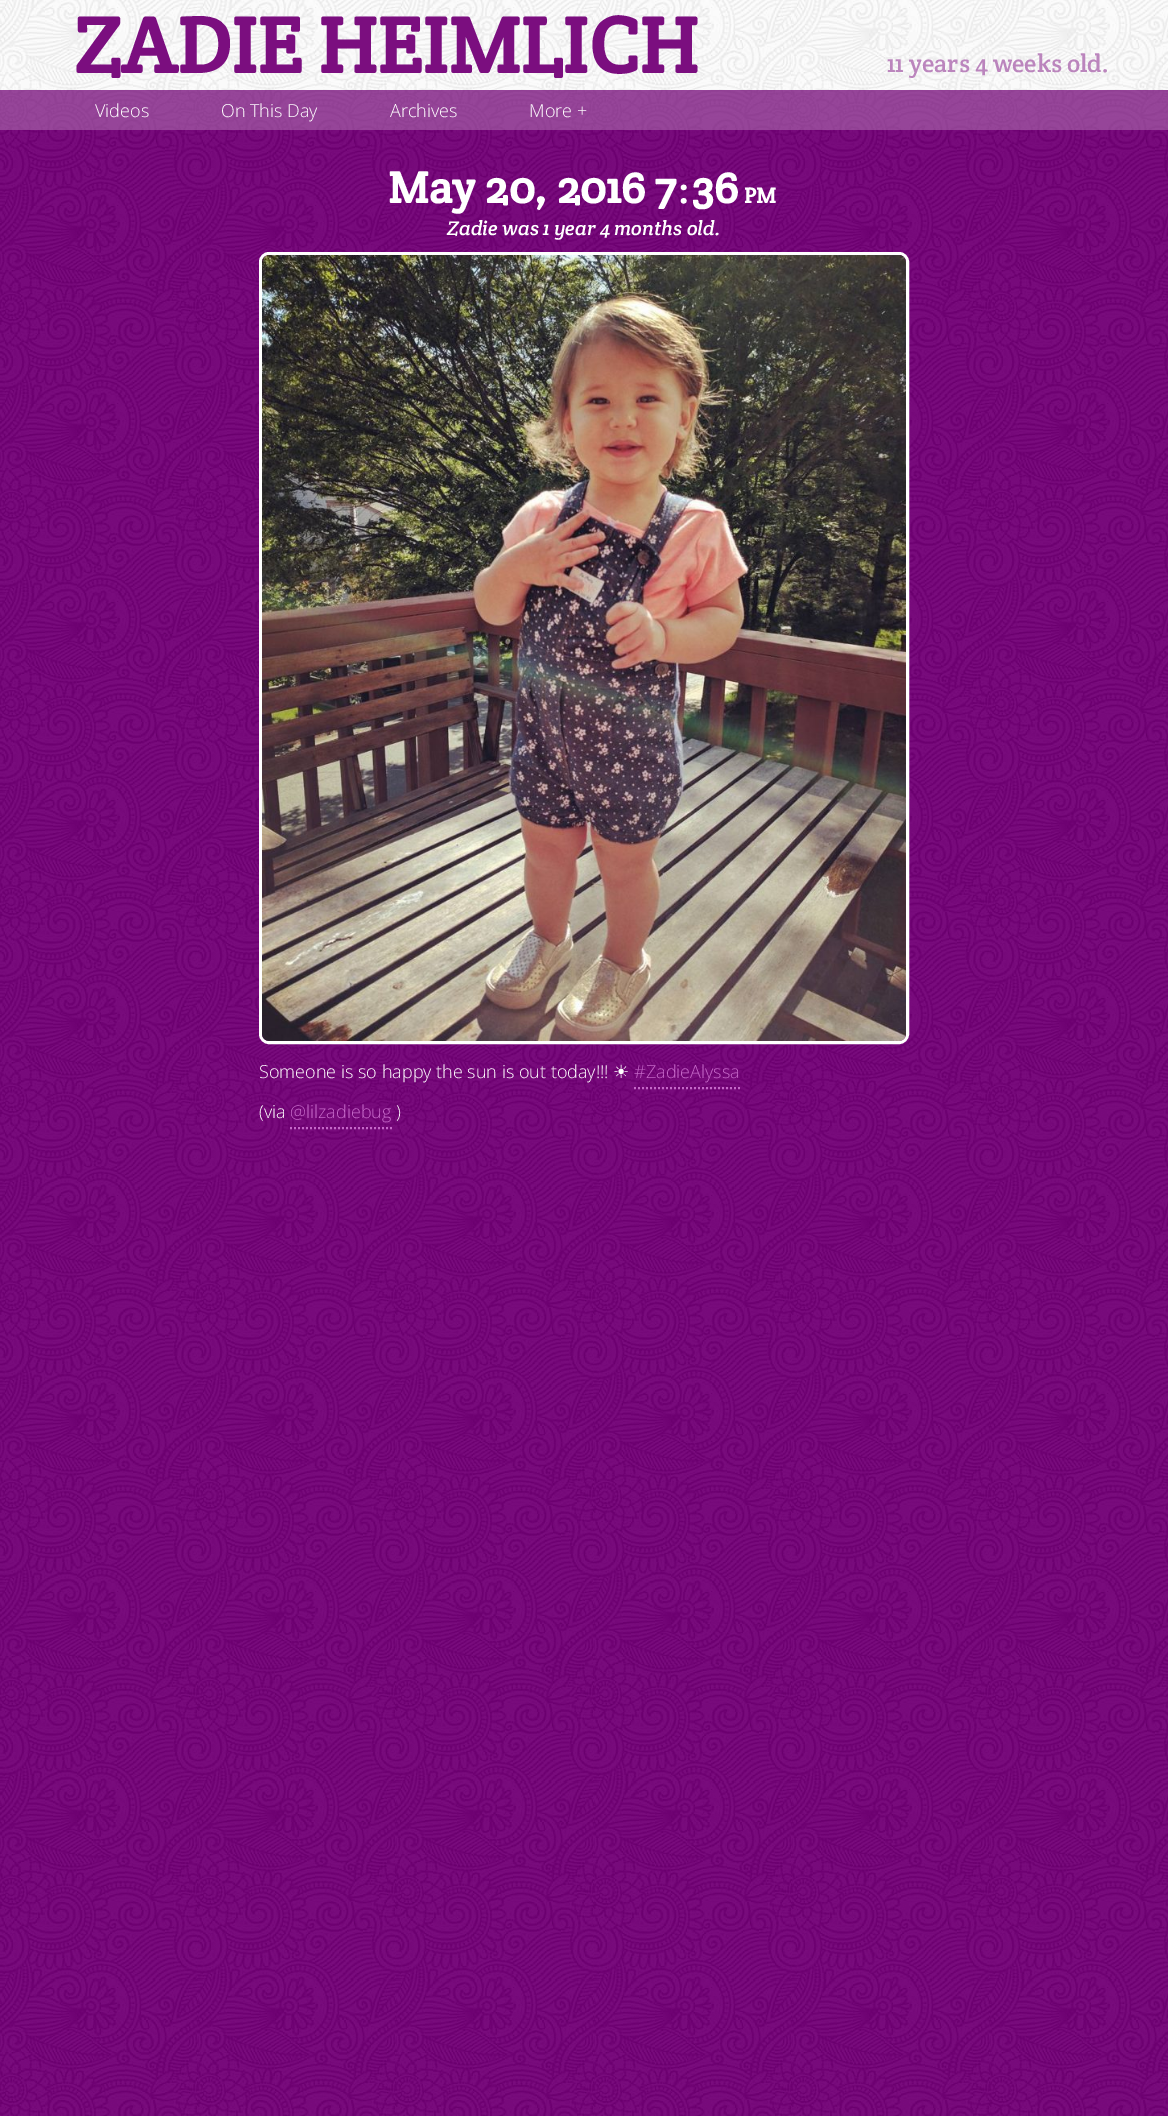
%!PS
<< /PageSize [1168 2116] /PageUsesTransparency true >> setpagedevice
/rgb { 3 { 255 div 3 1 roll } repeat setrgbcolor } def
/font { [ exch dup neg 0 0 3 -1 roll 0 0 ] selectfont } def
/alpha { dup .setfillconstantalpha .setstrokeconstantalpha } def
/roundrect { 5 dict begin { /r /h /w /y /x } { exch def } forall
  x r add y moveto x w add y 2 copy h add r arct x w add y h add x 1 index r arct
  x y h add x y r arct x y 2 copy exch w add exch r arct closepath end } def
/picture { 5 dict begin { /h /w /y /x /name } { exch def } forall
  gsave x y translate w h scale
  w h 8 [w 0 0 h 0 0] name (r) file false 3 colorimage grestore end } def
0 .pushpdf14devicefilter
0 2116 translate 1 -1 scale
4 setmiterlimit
255 255 255 rgb
0 0 1168 2116 rectfill
(img/1.rgb) 0 90 1168 2026 picture
(img/2.rgb) 0 0 1168 90 picture
0.5 alpha
180 127 182 rgb
0 90 1168 40 rectfill
1 alpha
255 255 255 rgb
3 setlinewidth
260.5 253.5 647 789 8.5 roundrect stroke
(img/3.rgb) 262 255 644 786 picture
197 104 200 rgb
2 setlinewidth
[2 2] 0 setdash
634 1088 moveto 740 1088 lineto stroke
290 1128 moveto 392 1128 lineto stroke
/CreteRound-Bold 80 font
123 14 127 rgb
74 73 moveto (ZADIE HEIMLICH) show
/CreteRound-Regular 25 font
187 133 189 rgb
887 72 moveto (11 years 4 weeks old.) show
/OpenSans-Light 18 font
255 255 255 rgb
[
  [(Videos) 95 117]
  [(On This Day) 221 117]
  [(Archives) 390 117]
  [(More +) 529 117]
] { aload pop moveto show } forall
/CreteRound-Bold 45 font
388 203 moveto (May 20, 2016 7) show
/CreteRound-Bold 34 font
679 203 moveto (:) show
/CreteRound-Bold 45 font
692 203 moveto (36) show
/CreteRound-Bold 22 font
744 203 moveto (PM) show
/CreteRound-Italic 20 font
447 235 moveto (Zadie was 1 year 4 months old.) show
/OpenSans-Light 18 font
259 1078 moveto (Someone is so happy the sun is out today!!!) show
/DejaVuSans-Regular 18 font
613 1078 moveto (☀) show
/OpenSans-Light 18 font
197 104 200 rgb
634 1078 moveto (#ZadieAlyssa) show
255 255 255 rgb
259 1118 moveto (\(via) show
197 104 200 rgb
290 1118 moveto (@lilzadiebug) show
255 255 255 rgb
396 1118 moveto (\)) show
.poppdf14devicefilter showpage
